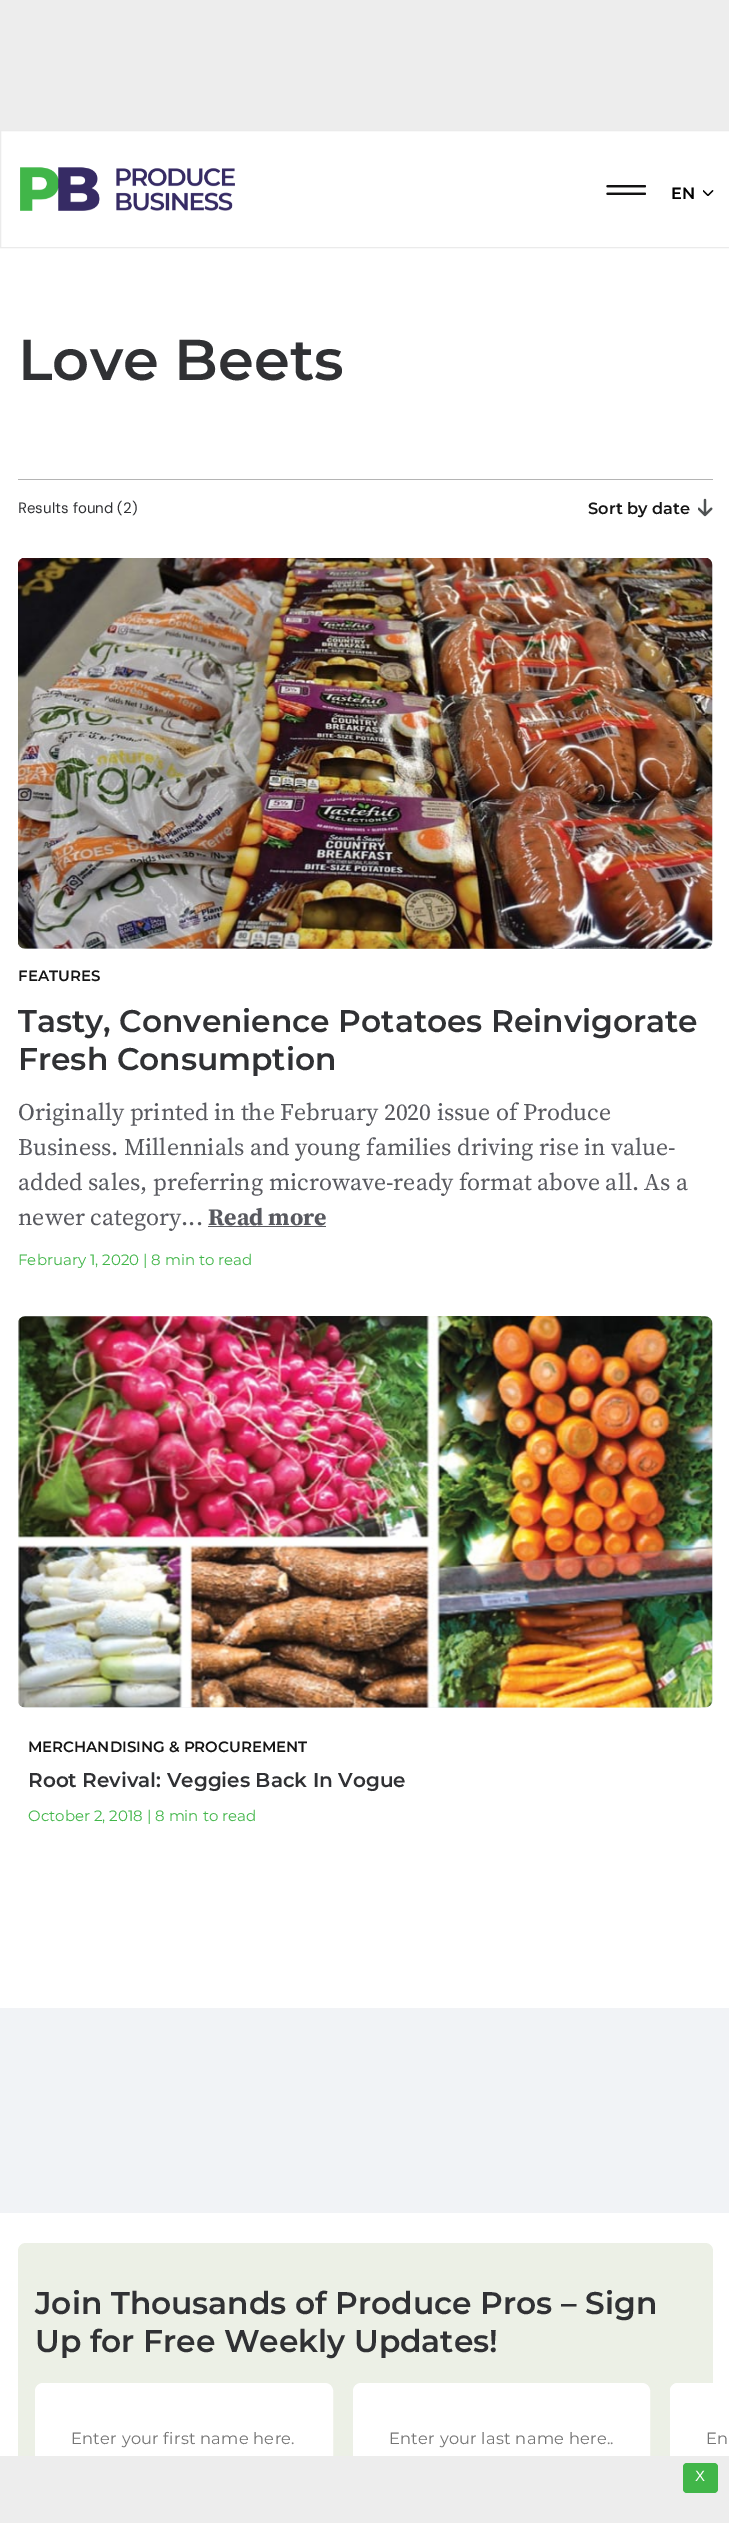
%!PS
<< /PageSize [729 2523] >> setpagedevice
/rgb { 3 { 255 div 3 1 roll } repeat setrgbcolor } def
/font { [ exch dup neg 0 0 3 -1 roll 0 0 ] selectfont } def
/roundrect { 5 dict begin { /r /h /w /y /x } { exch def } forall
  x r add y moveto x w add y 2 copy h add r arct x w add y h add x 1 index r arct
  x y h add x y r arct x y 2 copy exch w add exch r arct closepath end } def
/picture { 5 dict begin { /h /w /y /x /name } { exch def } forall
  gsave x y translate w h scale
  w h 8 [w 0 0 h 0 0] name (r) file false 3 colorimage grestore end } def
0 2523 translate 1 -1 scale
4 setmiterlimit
255 255 255 rgb
0 0 729 2523 rectfill
237 237 237 rgb
0 0 729 130 rectfill
235 235 235 rgb
0.5 130.5 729 117 rectstroke
(img/1.rgb) 20 167 215 44 picture
(img/2.rgb) 606 185 40 10 picture
(img/3.rgb) 703 190 11 6 picture
180 180 180 rgb
18 479 695 1 rectfill
(img/4.rgb) 698 498 15 19 picture
241 243 246 rgb
18 558 695 391 8 roundrect fill
(img/5.rgb) 18 558 695 391 picture
88 89 95 rgb
208 1226 118 1 rectfill
241 243 246 rgb
18 1316 695 392 8 roundrect fill
(img/6.rgb) 18 1316 695 392 picture
0 2008 729 205 rectfill
236 240 230 rgb
18 2243 695 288 8 roundrect fill
255 255 255 rgb
35.5 2383.5 297 111 7.5 roundrect gsave fill grestore
stroke
353.5 2383.5 296 111 7.5 roundrect gsave fill grestore
stroke
678 2383 moveto 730 2383 lineto 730 2495 lineto 678 2495 lineto 673.5 2495 670 2491.5 670 2487 curveto 670 2391 lineto 670 2386.5 673.5 2383 678 2383 curveto closepath fill
670.5 2383.5 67 111 7.5 roundrect stroke
237 237 237 rgb
0 2456 729 67 rectfill
65 182 73 rgb
683 2463 35 30 4 roundrect fill
/Montserrat-SemiBold 16.25 font
0 0 0 rgb
671 199 moveto (EN) show
/Montserrat-SemiBold 57.5 font
48 49 52 rgb
18 380 moveto (Love Beets) show
/DMSans-Regular 15 font
18 513 moveto (Results found \(2\)) show
/Montserrat-SemiBold 16.25 font
21 21 21 rgb
588 514 moveto (Sort by date) show
/Montserrat-SemiBold 15 font
18 981 moveto (FEATURES) show
/Montserrat-SemiBold 31.25 font
48 49 52 rgb
18 1032 moveto (Tasty, Convenience Potatoes Reinvigorate) show
18 1070 moveto (Fresh Consumption) show
/SourceSerif4-Regular 23.75 font
88 89 95 rgb
[
  [(Originally printed in the February 2020 issue of Produce) 18 1120]
  [(Business. Millennials and young families driving rise in value-) 18 1155]
  [(added sales, preferring microwave-ready format above all. As a) 18 1190]
  [(newer category...) 18 1225]
] { aload pop moveto show } forall
/SourceSerif4-Bold 23.75 font
208 1225 moveto (Read more) show
/Montserrat-Regular 15 font
65 182 73 rgb
18 1265 moveto (February 1, 2020 | 8 min to read) show
/Montserrat-SemiBold 15 font
21 21 21 rgb
28 1752 moveto (MERCHANDISING & PROCUREMENT) show
/Montserrat-SemiBold 20 font
48 49 52 rgb
28 1787 moveto (Root Revival: Veggies Back In Vogue) show
/Montserrat-Regular 15 font
65 182 73 rgb
28 1821 moveto (October 2, 2018 | 8 min to read) show
/Montserrat-SemiBold 31.25 font
48 49 52 rgb
35 2314 moveto (Join Thousands of Produce Pros – Sign) show
35 2352 moveto (Up for Free Weekly Updates!) show
/Montserrat-Regular 16.25 font
117 117 117 rgb
71 2444 moveto 0.25 0 (Enter your first name here.) ashow
389 2444 moveto 0.25 0 (Enter your last name here..) ashow
706 2444 moveto 0.25 0 (En) ashow
/LiberationSans-Regular 15 font
255 255 255 rgb
695 2481 moveto (X) show
showpage
